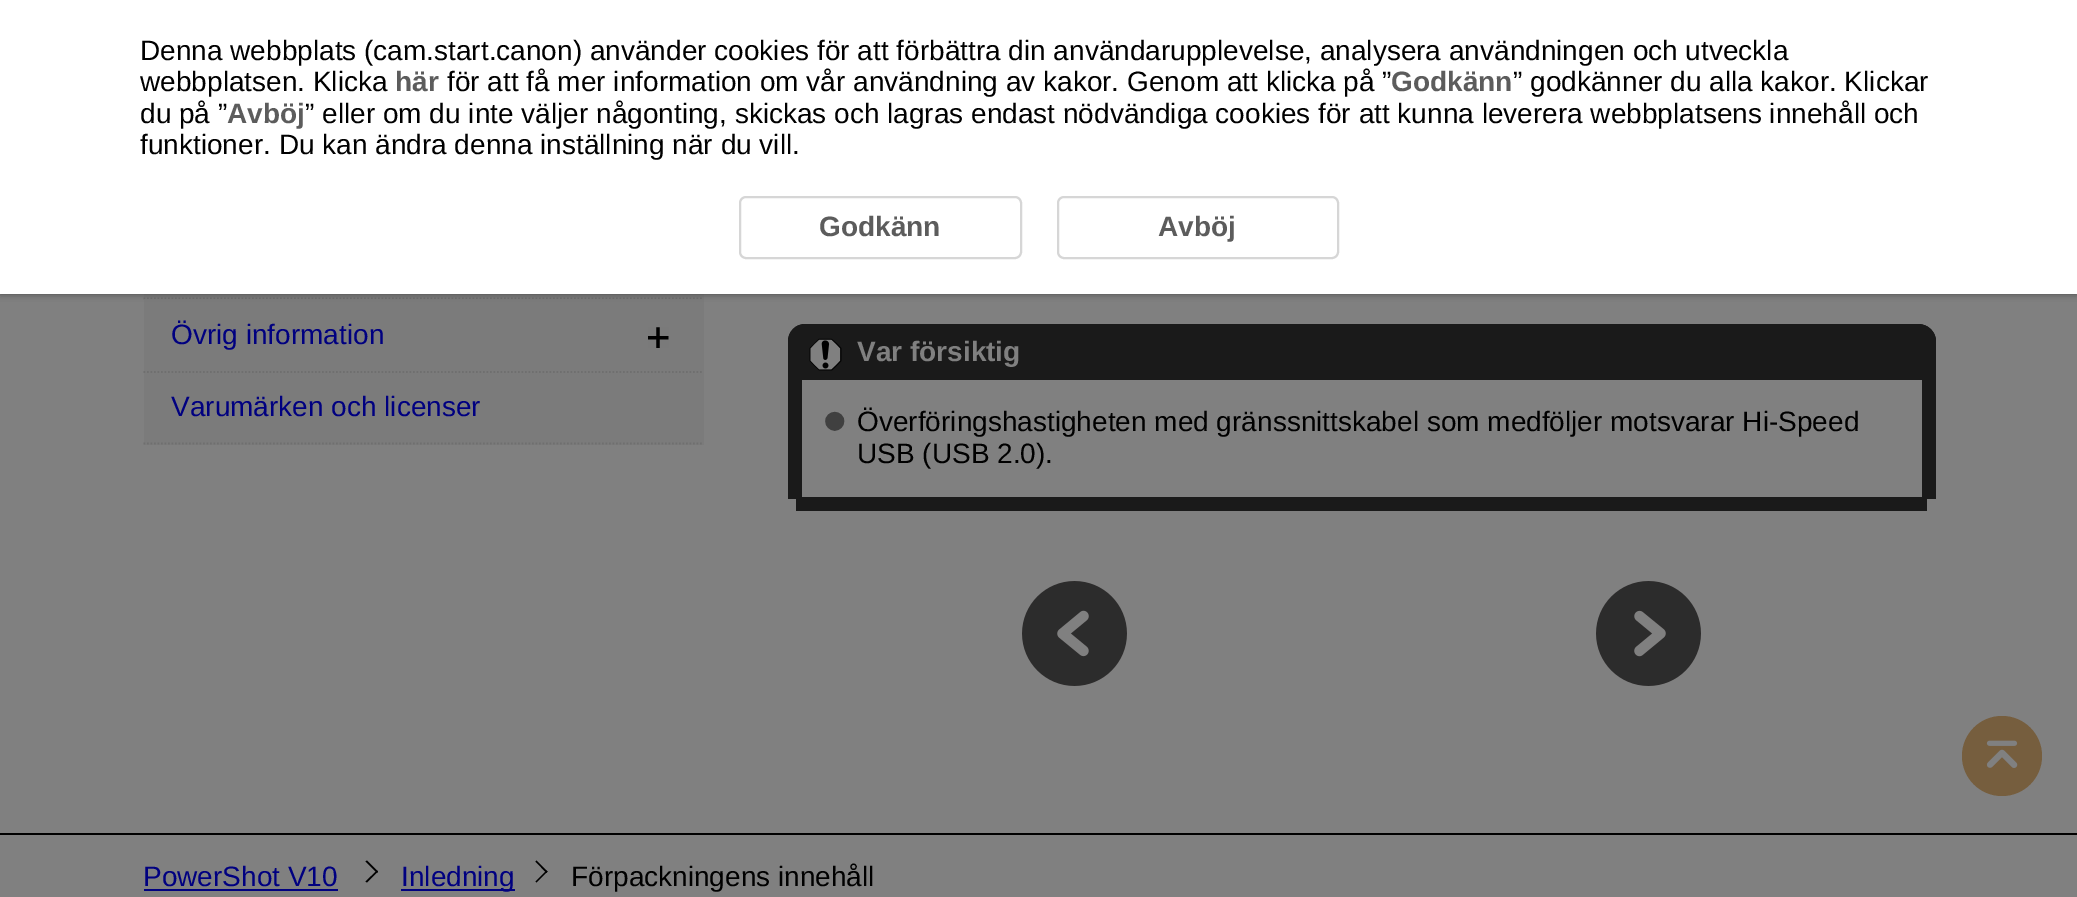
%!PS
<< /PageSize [2077 897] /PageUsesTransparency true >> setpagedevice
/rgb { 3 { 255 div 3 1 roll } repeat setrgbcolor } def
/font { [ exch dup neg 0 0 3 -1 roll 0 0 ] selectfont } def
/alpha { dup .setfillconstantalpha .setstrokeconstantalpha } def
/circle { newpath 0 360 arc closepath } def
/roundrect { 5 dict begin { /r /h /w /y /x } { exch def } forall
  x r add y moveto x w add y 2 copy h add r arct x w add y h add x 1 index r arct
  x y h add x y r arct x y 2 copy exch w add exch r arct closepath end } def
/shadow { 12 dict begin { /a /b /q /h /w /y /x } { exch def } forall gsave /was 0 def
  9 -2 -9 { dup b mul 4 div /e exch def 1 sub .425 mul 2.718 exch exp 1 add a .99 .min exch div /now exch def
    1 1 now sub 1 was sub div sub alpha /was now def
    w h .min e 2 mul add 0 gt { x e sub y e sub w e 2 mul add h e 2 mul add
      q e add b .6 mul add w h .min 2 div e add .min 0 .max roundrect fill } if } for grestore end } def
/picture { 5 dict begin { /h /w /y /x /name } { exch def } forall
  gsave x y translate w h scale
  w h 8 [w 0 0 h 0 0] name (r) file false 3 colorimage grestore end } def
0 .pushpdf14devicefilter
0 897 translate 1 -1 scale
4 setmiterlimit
128 128 128 rgb
0 0 2077 897 rectfill
123 123 123 rgb
144 294 560 5 rectfill
111 111 111 rgb
1.8 setlinewidth
[1.75 1.75] 0 setdash
143.5 298.5 moveto 703.5 298.5 lineto stroke
123 123 123 rgb
144 299 560 146 rectfill
0 0 0 rgb
0 0 2077 294 0 3.5 0.4 shadow
255 255 255 rgb
0 0 2077 294 rectfill
214 214 214 rgb
2 setlinewidth
[] 0 setdash
740 197 281 61 6 roundrect stroke
1058 197 280 61 6 roundrect stroke
111 111 111 rgb
1.8 setlinewidth
[1.75 1.75] 0 setdash
143.5 372 moveto 703.5 372 lineto stroke
(img/1.rgb) 648 327 21 21 picture
143.5 443.5 moveto 703.5 443.5 lineto stroke
26 26 26 rgb
796 497 1131 14 rectfill
806 324 moveto 1918 324 lineto 1928 324 1936 332 1936 342 curveto 1936 369 lineto 788 369 lineto 788 342 lineto 788 332 796 324 806 324 curveto closepath fill
805 324 moveto 1918 324 lineto 1928 324 1936 332 1936 341 curveto 1936 369 lineto 788 369 lineto 788 341 lineto 788 332 795 324 805 324 curveto closepath 805 338 moveto 1918 338 lineto 1920 338 1922 339 1922 341 curveto 1922 369 lineto 802 369 lineto 802 341 lineto 802 339 803 338 805 338 curveto closepath eofill
802 369 1120 11 rectfill
(img/2.rgb) 809 338 33 33 picture
1922 369 14 130 rectfill
788 369 14 130 rectfill
(img/3.rgb) 825 411 20 20 picture
(img/4.rgb) 1022 581 105 105 picture
(img/5.rgb) 1596 581 105 105 picture
0 0 0 rgb
0 833 2077 2 rectfill
118 94 62 rgb
2002 756 40 circle fill
(img/6.rgb) 1986 740 32 28 picture
0 0 128 rgb
144 889 194 2 rectfill
0 0 0 rgb
367 860.5 moveto 378 871.5 lineto 377 873 lineto 365.5 861.5 lineto closepath fill
377 870.5 moveto 378 871.5 lineto 367 882.5 lineto 365.5 881.5 lineto closepath fill
0 0 128 rgb
401 889 114 2 rectfill
0 0 0 rgb
536.5 860.5 moveto 547.5 871.5 lineto 546.5 873 lineto 535.5 861.5 lineto closepath fill
546.5 870.5 moveto 547.5 871.5 lineto 536.5 882.5 lineto 535.5 881.5 lineto closepath fill
/LiberationSans-Regular 28 font
140 60 moveto (Denna webbplats \(cam.start.canon\) använder cookies för att förbättra din användarupplevelse, analysera användningen och utveckla) show
140 91 moveto (webbplatsen. Klicka) show
/LiberationSans-Bold 28 font
92 92 92 rgb
395 91 moveto (här) show
/LiberationSans-Regular 28 font
0 0 0 rgb
447 91 moveto (för att få mer information om vår användning av kakor. Genom att klicka på ”) show
/LiberationSans-Bold 28 font
92 92 92 rgb
1391 91 moveto (Godkänn) show
/LiberationSans-Regular 28 font
0 0 0 rgb
1513 91 moveto (” godkänner du alla kakor. Klickar) show
140 123 moveto (du på ”) show
/LiberationSans-Bold 28 font
92 92 92 rgb
227 123 moveto (Avböj) show
/LiberationSans-Regular 28 font
0 0 0 rgb
305 123 moveto (” eller om du inte väljer någonting, skickas och lagras endast nödvändiga cookies för att kunna leverera webbplatsens innehåll och) show
140 154 moveto (funktioner. Du kan ändra denna inställning när du vill.) show
/LiberationSans-Bold 28 font
92 92 92 rgb
819 236 moveto (Godkänn) show
1158 236 moveto (Avböj) show
/LiberationSans-Regular 28 font
0 0 128 rgb
171 344 moveto (Övrig information) show
171 416 moveto (Varumärken och licenser) show
/LiberationSans-Bold 28 font
128 128 128 rgb
857 361 moveto (Var försiktig) show
/LiberationSans-Regular 28 font
0 0 0 rgb
857 431 moveto (Överföringshastigheten med gränssnittskabel som medföljer motsvarar Hi-Speed) show
857 463 moveto (USB \(USB 2.0\).) show
0 0 128 rgb
143 886 moveto (PowerShot V10) show
401 886 moveto (Inledning) show
0 0 0 rgb
571 886 moveto (Förpackningens innehåll) show
.poppdf14devicefilter showpage
